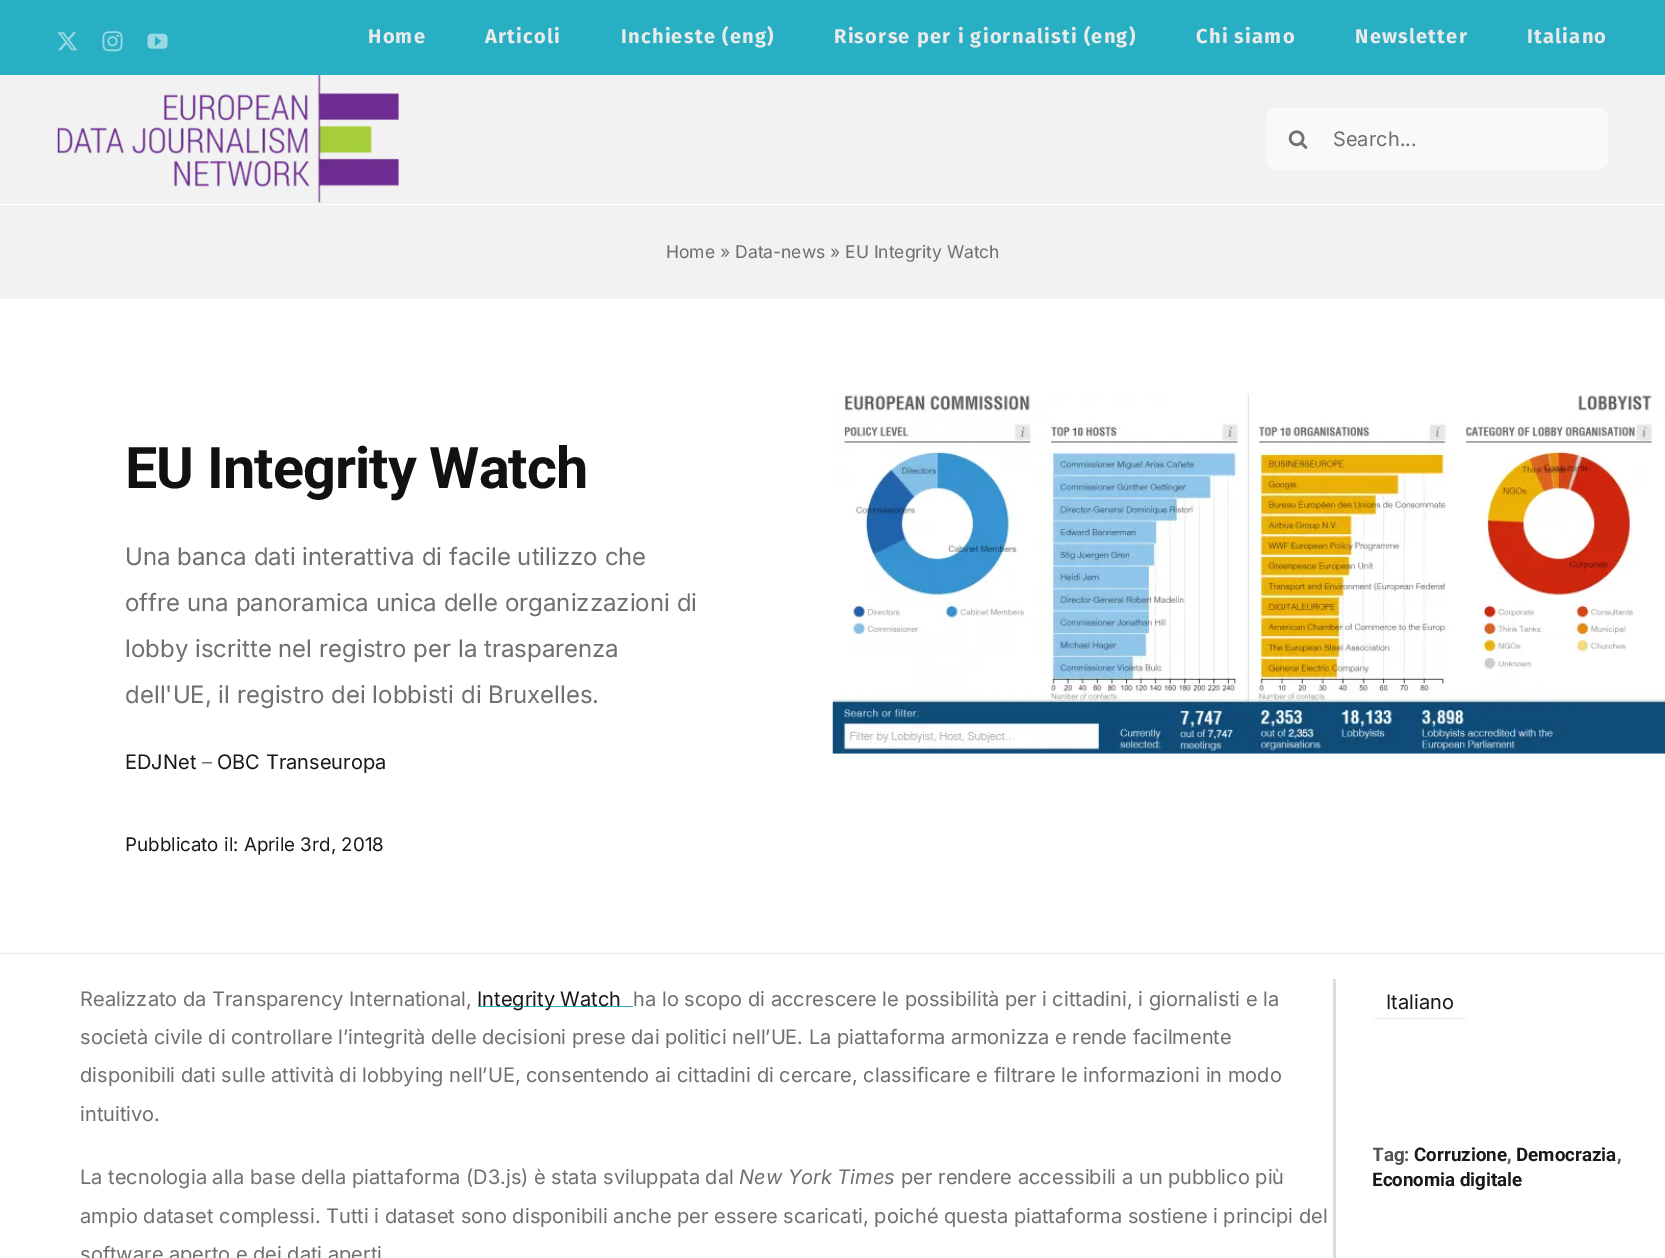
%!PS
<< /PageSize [1665 1258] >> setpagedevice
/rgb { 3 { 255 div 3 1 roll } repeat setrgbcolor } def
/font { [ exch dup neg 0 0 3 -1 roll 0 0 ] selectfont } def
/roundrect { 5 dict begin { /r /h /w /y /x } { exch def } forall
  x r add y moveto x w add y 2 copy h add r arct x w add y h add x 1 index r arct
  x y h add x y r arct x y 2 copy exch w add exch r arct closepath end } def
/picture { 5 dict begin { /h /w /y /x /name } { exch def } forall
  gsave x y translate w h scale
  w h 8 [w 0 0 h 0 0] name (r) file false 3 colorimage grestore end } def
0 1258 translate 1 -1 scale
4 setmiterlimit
255 255 255 rgb
0 0 1665 1258 rectfill
40 175 195 rgb
0 0 1665 75 rectfill
(img/1.rgb) 57 32 21 19 picture
(img/2.rgb) 102 31 21 21 picture
(img/3.rgb) 147 33 21 16 picture
242 242 242 rgb
0 75 1665 129 rectfill
(img/4.rgb) 57 75 342 128 picture
249 249 249 rgb
1266 108 342 62 10 roundrect fill
(img/5.rgb) 1288 130 20 19 picture
242 242 242 rgb
0 205 1665 94 rectfill
(img/6.rgb) 832 393 833 361 picture
[
  [0 953 1665 1 234 234 234]
  [478 1006 155 1 40 175 195]
  [1333 979 3 279 221 221 221]
  [1374 1018 92 1 234 234 234]
] { aload pop rgb rectfill } forall
/FiraSans-Bold 20 font
368 43 moveto 1.25 0 (Home) ashow
485 43 moveto 1.25 0 (Articoli) ashow
621 43 moveto 1.25 0 (Inchieste \(eng\)) ashow
834 43 moveto 1.25 0 (Risorse per i giornalisti \(eng\)) ashow
1196 43 moveto 1.25 0 (Chi siamo) ashow
1355 43 moveto 1.25 0 (Newsletter) ashow
1527 43 moveto 1.25 0 (Italiano) ashow
/Inter-Regular 20 font
112 112 112 rgb
1333 146 moveto (Search...) show
/Inter-Regular 17.5 font
666 258 moveto (Home » Data-news » EU Integrity Watch) show
/Roboto-Bold 57.5 font
17 17 17 rgb
125 488 moveto -0.9 0 (EU Integrity Watch) ashow
/Inter-Regular 24 font
112 112 112 rgb
[
  [(Una banca dati interattiva di facile utilizzo che) 125 565]
  [(offre una panoramica unica delle organizzazioni di) 125 611]
  [(lobby iscritte nel registro per la trasparenza) 125 657]
  [(dell'UE, il registro dei lobbisti di Bruxelles.) 125 703]
] { aload pop moveto show } forall
/Inter-Regular 20 font
25 25 25 rgb
125 769 moveto (EDJNet) show
112 112 112 rgb
202 769 moveto (–) show
25 25 25 rgb
217 769 moveto (OBC Transeuropa) show
/Inter-Regular 18.75 font
125 851 moveto (Pubblicato il: Aprile 3rd, 2018) show
/Inter-Regular 20 font
112 112 112 rgb
80 1006 moveto (Realizzato da Transparency International,) show
25 25 25 rgb
477 1006 moveto (Integrity Watch) show
112 112 112 rgb
[
  [(ha lo scopo di accrescere le possibilità per i cittadini, i giornalisti e la) 633 1006]
  [(società civile di controllare l’integrità delle decisioni prese dai politici nell’UE. La piattaforma armonizza e rende facilmente) 80 1044]
  [(disponibili dati sulle attività di lobbying nell’UE, consentendo ai cittadini di cercare, classificare e filtrare le informazioni in modo) 80 1082]
  [(intuitivo.) 80 1121]
  [(La tecnologia alla base della piattaforma \(D3.js\) è stata sviluppata dal) 80 1184]
] { aload pop moveto show } forall
/Inter-Italic 20 font
739 1184 moveto (New York Times) show
/Inter-Regular 20 font
[
  [(per rendere accessibili a un pubblico più) 901 1184]
  [(ampio dataset complessi. Tutti i dataset sono disponibili anche per essere scaricati, poiché questa piattaforma sostiene i principi del) 80 1223]
  [(software aperto e dei dati aperti) 80 1261]
] { aload pop moveto show } forall
25 25 25 rgb
1386 1009 moveto (Italiano) show
gsave
1373 1144 255 49 rectclip
/Roboto-Bold 18.75 font
82 82 82 rgb
1372 1161 moveto (Tag:) show
grestore
/Roboto-Bold 18.75 font
1414 1161 moveto (Corruzione) show
82 82 82 rgb
1507 1161 moveto (,) show
25 25 25 rgb
1516 1161 moveto (Democrazia) show
82 82 82 rgb
1617 1161 moveto (,) show
25 25 25 rgb
1372 1186 moveto (Economia digitale) show
showpage
